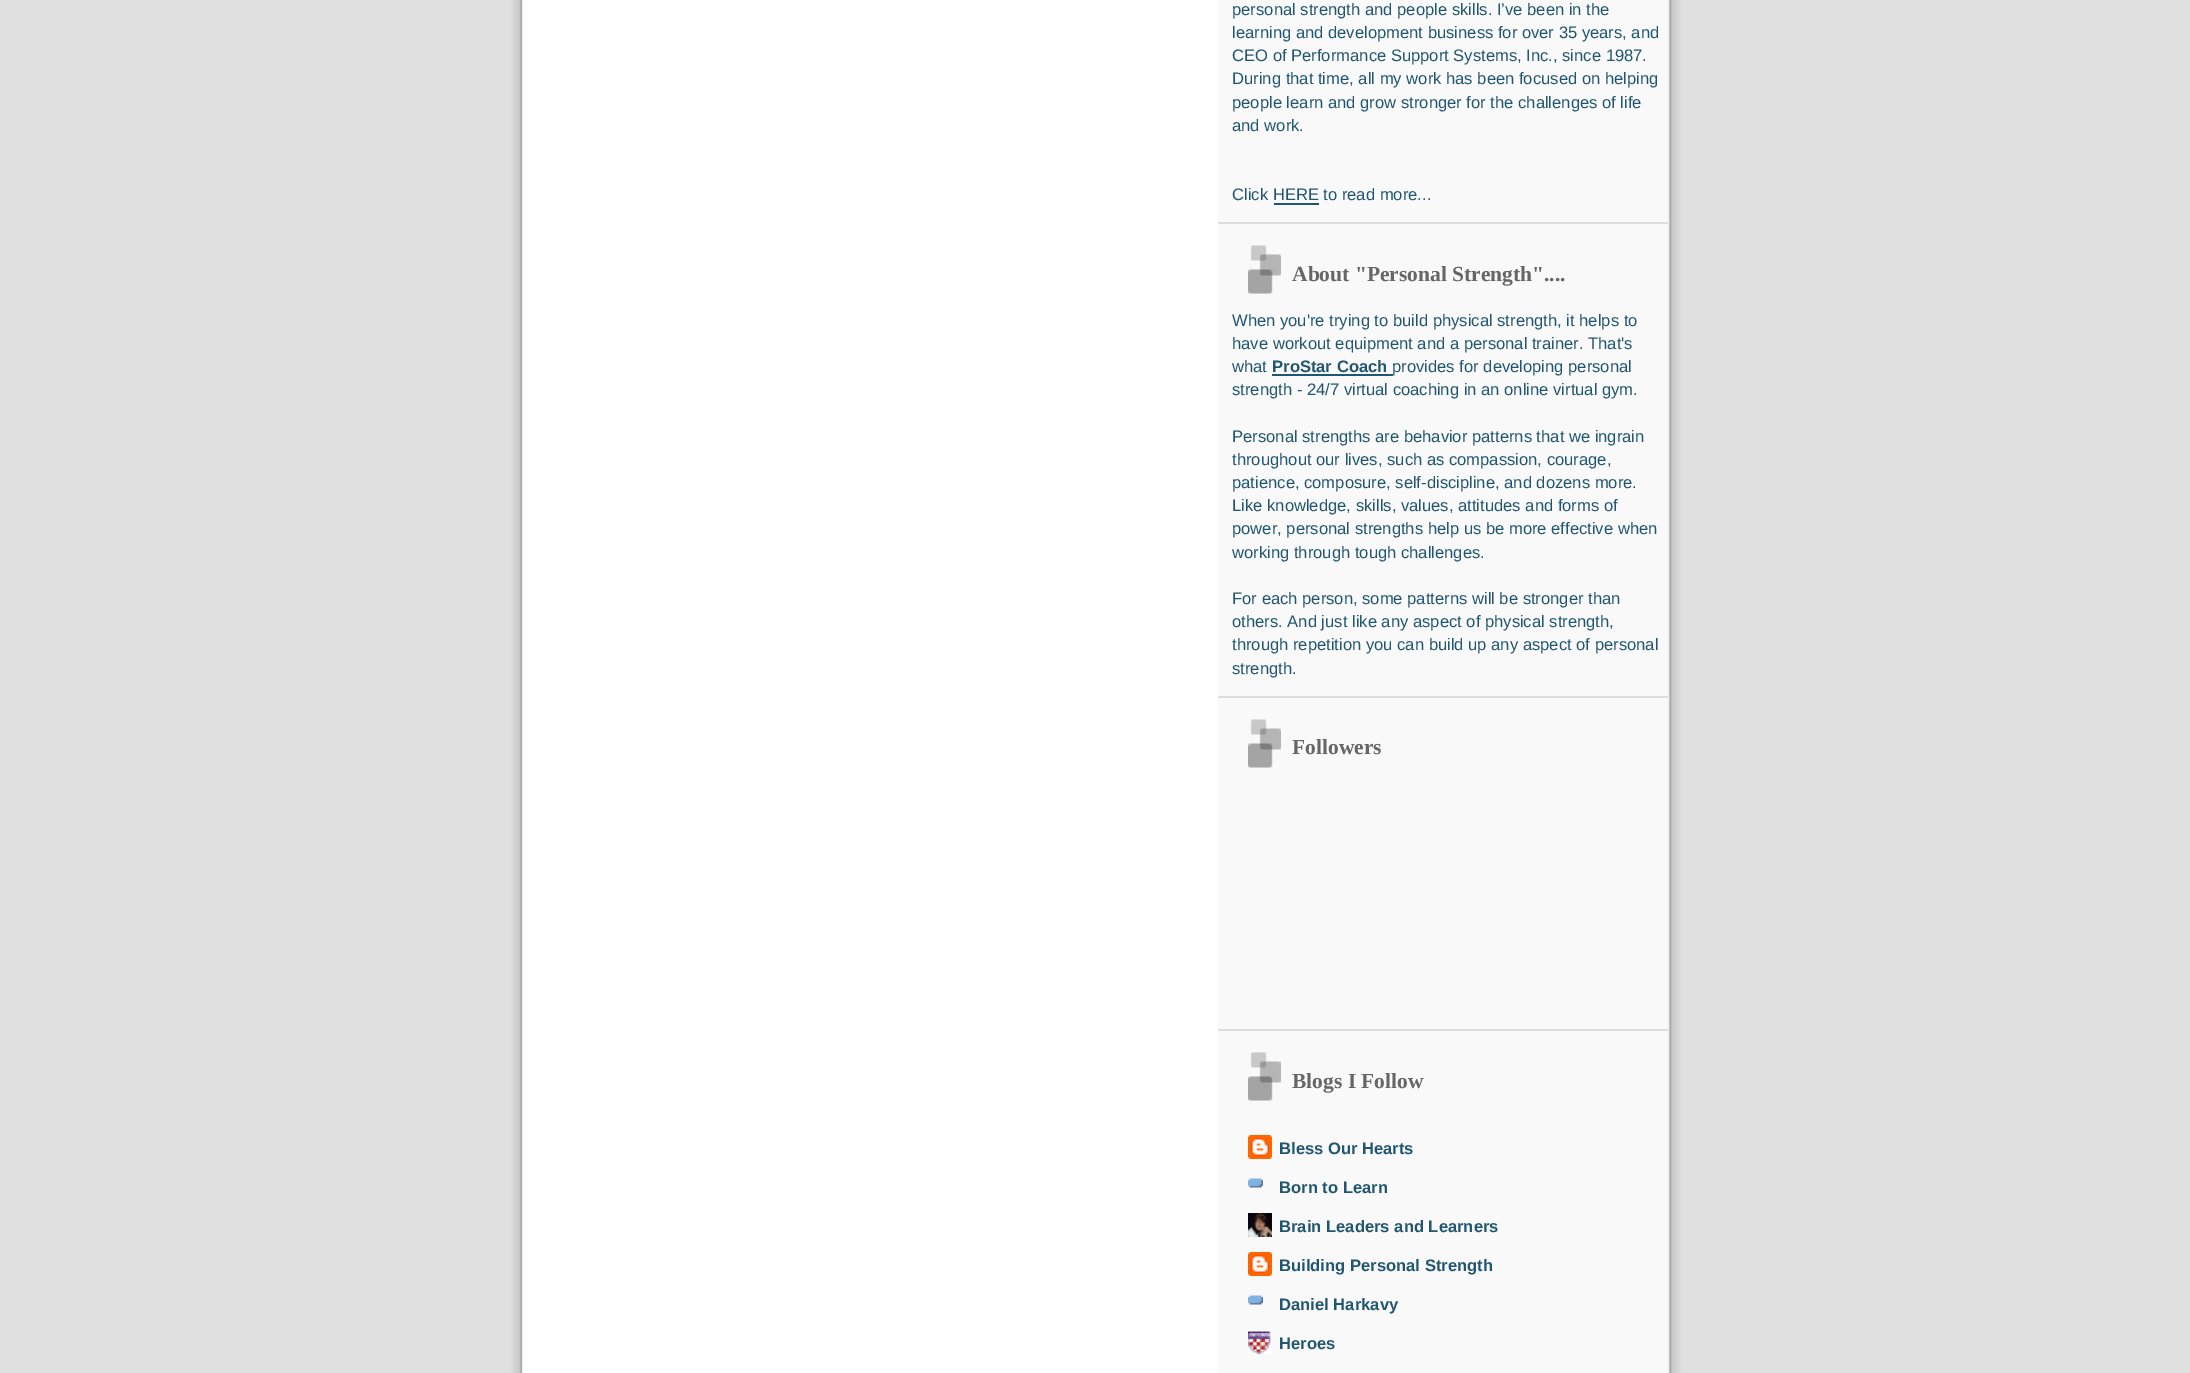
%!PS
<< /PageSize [2190 1373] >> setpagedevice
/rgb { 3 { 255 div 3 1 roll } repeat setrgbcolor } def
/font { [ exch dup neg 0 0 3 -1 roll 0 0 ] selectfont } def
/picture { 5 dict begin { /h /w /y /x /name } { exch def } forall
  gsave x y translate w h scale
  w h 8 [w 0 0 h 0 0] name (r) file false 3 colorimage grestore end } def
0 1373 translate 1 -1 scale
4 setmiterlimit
224 224 224 rgb
0 0 2190 1373 rectfill
(img/1.rgb) 511 0 1170 1373 picture
[
  [1218 0 450 1373 249 249 249]
  [1218 222 450 2 221 221 221]
  [1274 203 45 2 33 86 112]
  [1218 696 450 2 221 221 221]
] { aload pop rgb rectfill } forall
(img/2.rgb) 1248 245 33 49 picture
33 86 112 rgb
1272 374 121 2 rectfill
221 221 221 rgb
1218 1029 450 2 rectfill
(img/2.rgb) 1248 719 33 49 picture
(img/2.rgb) 1248 1052 33 49 picture
(img/3.rgb) 1248 1135 24 24 picture
(img/4.rgb) 1248 1178 15 10 picture
(img/5.rgb) 1248 1213 24 24 picture
(img/3.rgb) 1248 1252 24 24 picture
(img/4.rgb) 1248 1295 15 10 picture
(img/6.rgb) 1248 1330 24 24 picture
/LiberationSans-Regular 16.6 font
33 86 112 rgb
[
  [(personal strength and people skills. I’ve been in the) 1232 15]
  [(learning and development business for over 35 years, and) 1232 38]
  [(CEO of Performance Support Systems, Inc., since 1987.) 1232 61]
  [(During that time, all my work has been focused on helping) 1232 84]
  [(people learn and grow stronger for the challenges of life) 1232 108]
  [(and work.) 1232 131]
  [(Click HERE to read more...) 1232 200]
] { aload pop moveto show } forall
/LiberationSerif-Bold 21.5 font
102 102 102 rgb
1292 281 moveto (About "Personal Strength"....) show
/LiberationSans-Regular 16.6 font
33 86 112 rgb
[
  [(When you're trying to build physical strength, it helps to) 1232 326]
  [(have workout equipment and a personal trainer. That's) 1232 349]
  [(what) 1232 372]
] { aload pop moveto show } forall
/LiberationSans-Bold 16.6 font
1272 372 moveto (ProStar Coach) show
/LiberationSans-Regular 16.6 font
[
  [(provides for developing personal) 1392 372]
  [(strength - 24/7 virtual coaching in an online virtual gym.) 1232 395]
  [(Personal strengths are behavior patterns that we ingrain) 1232 442]
  [(throughout our lives, such as compassion, courage,) 1232 465]
  [(patience, composure, self-discipline, and dozens more.) 1232 488]
  [(Like knowledge, skills, values, attitudes and forms of) 1232 511]
  [(power, personal strengths help us be more effective when) 1232 534]
  [(working through tough challenges.) 1232 558]
  [(For each person, some patterns will be stronger than) 1232 604]
  [(others. And just like any aspect of physical strength,) 1232 627]
  [(through repetition you can build up any aspect of personal) 1232 650]
  [(strength.) 1232 674]
] { aload pop moveto show } forall
/LiberationSerif-Bold 21.5 font
102 102 102 rgb
1292 754 moveto (Followers) show
1292 1088 moveto (Blogs I Follow) show
/LiberationSans-Bold 16.6 font
33 86 112 rgb
[
  [(Bless Our Hearts) 1279 1154]
  [(Born to Learn) 1279 1193]
  [(Brain Leaders and Learners) 1279 1232]
  [(Building Personal Strength) 1279 1271]
  [(Daniel Harkavy) 1279 1310]
  [(Heroes) 1279 1349]
] { aload pop moveto show } forall
showpage
